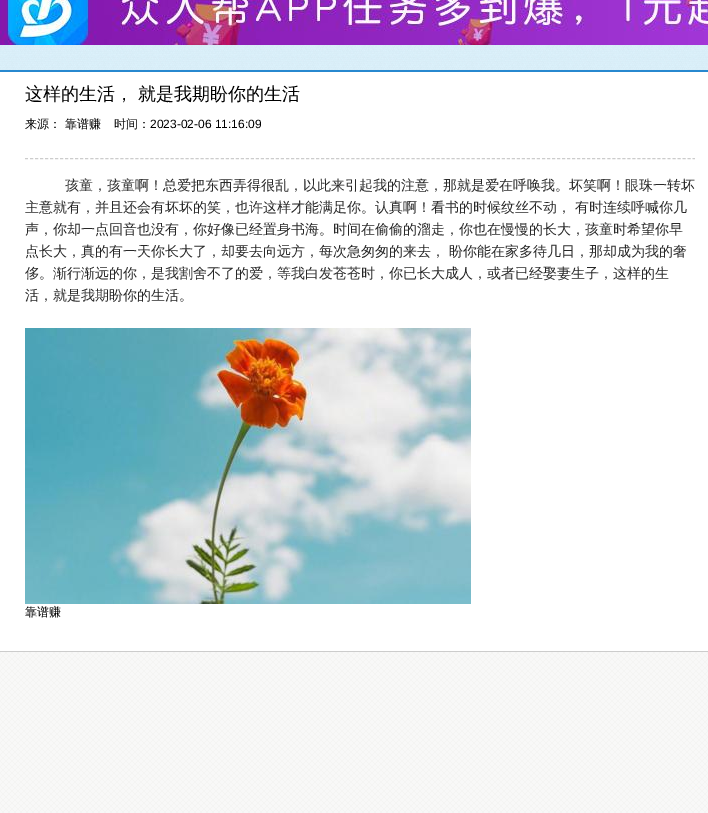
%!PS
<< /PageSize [708 813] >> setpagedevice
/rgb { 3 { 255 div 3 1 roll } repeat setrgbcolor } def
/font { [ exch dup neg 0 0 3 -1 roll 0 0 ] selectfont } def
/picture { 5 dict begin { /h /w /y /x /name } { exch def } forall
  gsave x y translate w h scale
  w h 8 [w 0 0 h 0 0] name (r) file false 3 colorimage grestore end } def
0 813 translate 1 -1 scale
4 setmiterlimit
255 255 255 rgb
0 0 708 813 rectfill
(img/1.rgb) 0 652 708 161 picture
(img/2.rgb) 0 45 708 25 picture
(img/3.rgb) 0 0 708 45 picture
39 136 207 rgb
0 70 708 2 rectfill
204 204 204 rgb
0 651 708 1 rectfill
[3 2.02] 0 setdash
25 158.5 moveto 695 158.5 lineto stroke
(img/4.rgb) 25 328 446 276 picture
/WenQuanYiZenHei-Medium 18 font
0 0 0 rgb
25 100 moveto (这样的生活， 就是我期盼你的生活) show
/WenQuanYiZenHei-Medium 12 font
25 128 moveto (来源： 靠谱赚) show
114 128 moveto (时间：) show
/LiberationSans-Regular 12 font
150 128 moveto (2023-02-06 11:16:09) show
/WenQuanYiZenHei-Medium 14 font
40 40 40 rgb
[
  [(孩童，孩童啊！总爱把东西弄得很乱，以此来引起我的注意，那就是爱在呼唤我。坏笑啊！眼珠一转坏) 65 190]
  [(主意就有，并且还会有坏坏的笑，也许这样才能满足你。认真啊！看书的时候纹丝不动， 有时连续呼喊你几) 25 212]
  [(声，你却一点回音也没有，你好像已经置身书海。时间在偷偷的溜走，你也在慢慢的长大，孩童时希望你早) 25 234]
  [(点长大，真的有一天你长大了，却要去向远方，每次急匆匆的来去， 盼你能在家多待几日，那却成为我的奢) 25 256]
  [(侈。渐行渐远的你，是我割舍不了的爱，等我白发苍苍时，你已长大成人，或者已经娶妻生子，这样的生) 25 278]
  [(活，就是我期盼你的生活。) 25 300]
] { aload pop moveto show } forall
/WenQuanYiZenHei-Medium 12 font
0 0 0 rgb
25 616 moveto (靠谱赚) show
showpage
